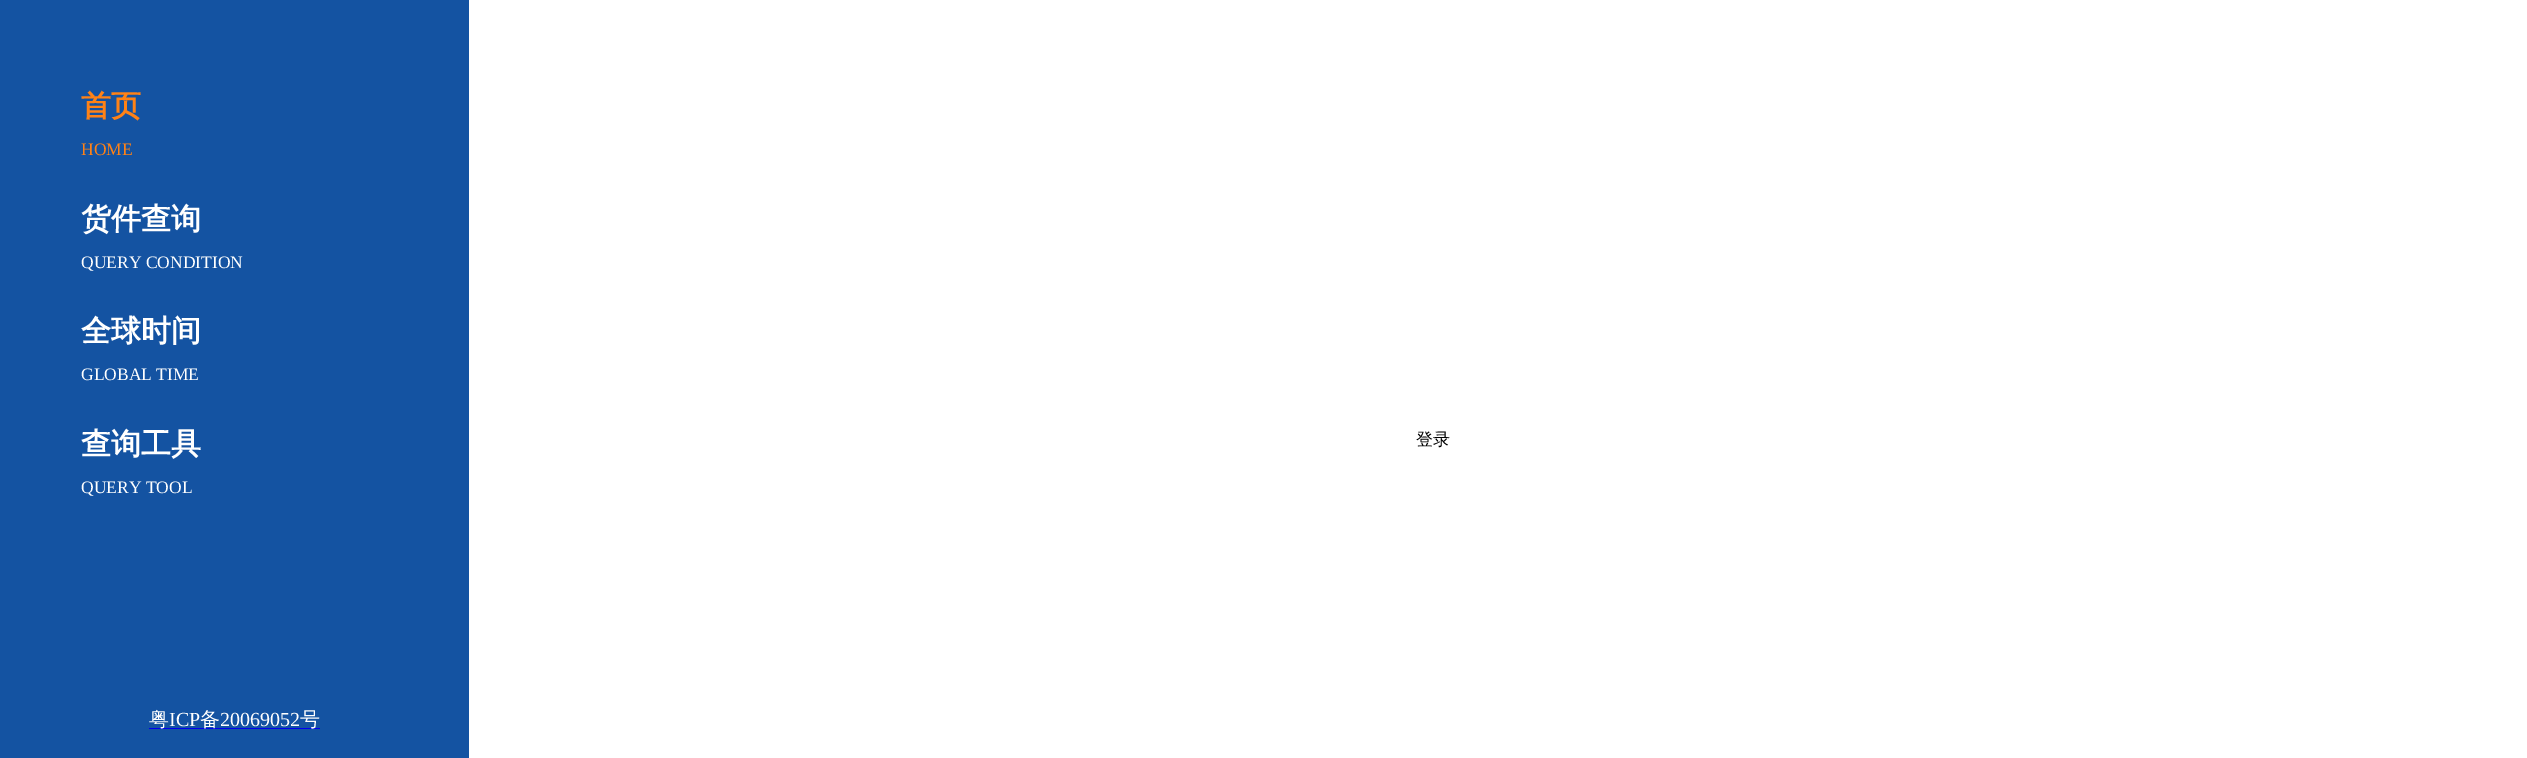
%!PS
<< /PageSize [2527 758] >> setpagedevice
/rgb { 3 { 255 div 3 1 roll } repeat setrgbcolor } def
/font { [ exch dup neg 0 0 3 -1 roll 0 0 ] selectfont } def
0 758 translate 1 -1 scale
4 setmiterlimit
255 255 255 rgb
0 0 2527 758 rectfill
20 83 162 rgb
0 0 469 758 rectfill
0 0 238 rgb
149 728 171 1 rectfill
/WenQuanYiZenHei-Bold 30 font
255 130 22 rgb
81 116 moveto (首页) show
/LiberationSerif-Regular 17.5 font
81 155 moveto (HOME) show
/WenQuanYiZenHei-Bold 30 font
255 255 255 rgb
81 229 moveto (货件查询) show
/LiberationSerif-Regular 17.5 font
81 268 moveto (QUERY CONDITION) show
/WenQuanYiZenHei-Bold 30 font
81 341 moveto (全球时间) show
/LiberationSerif-Regular 17.5 font
81 380 moveto (GLOBAL TIME) show
/WenQuanYiZenHei-Bold 30 font
81 454 moveto (查询工具) show
/LiberationSerif-Regular 17.5 font
81 493 moveto (QUERY TOOL) show
/WenQuanYiZenHei-Medium 20 font
149 726 moveto (粤) show
/LiberationSerif-Regular 20 font
169 726 moveto (ICP) show
/WenQuanYiZenHei-Medium 20 font
200 726 moveto (备) show
/LiberationSerif-Regular 20 font
220 726 moveto (20069052) show
/WenQuanYiZenHei-Medium 20 font
300 726 moveto (号) show
/WenQuanYiZenHei-Medium 17 font
0 0 0 rgb
1416 445 moveto (登录) show
showpage
